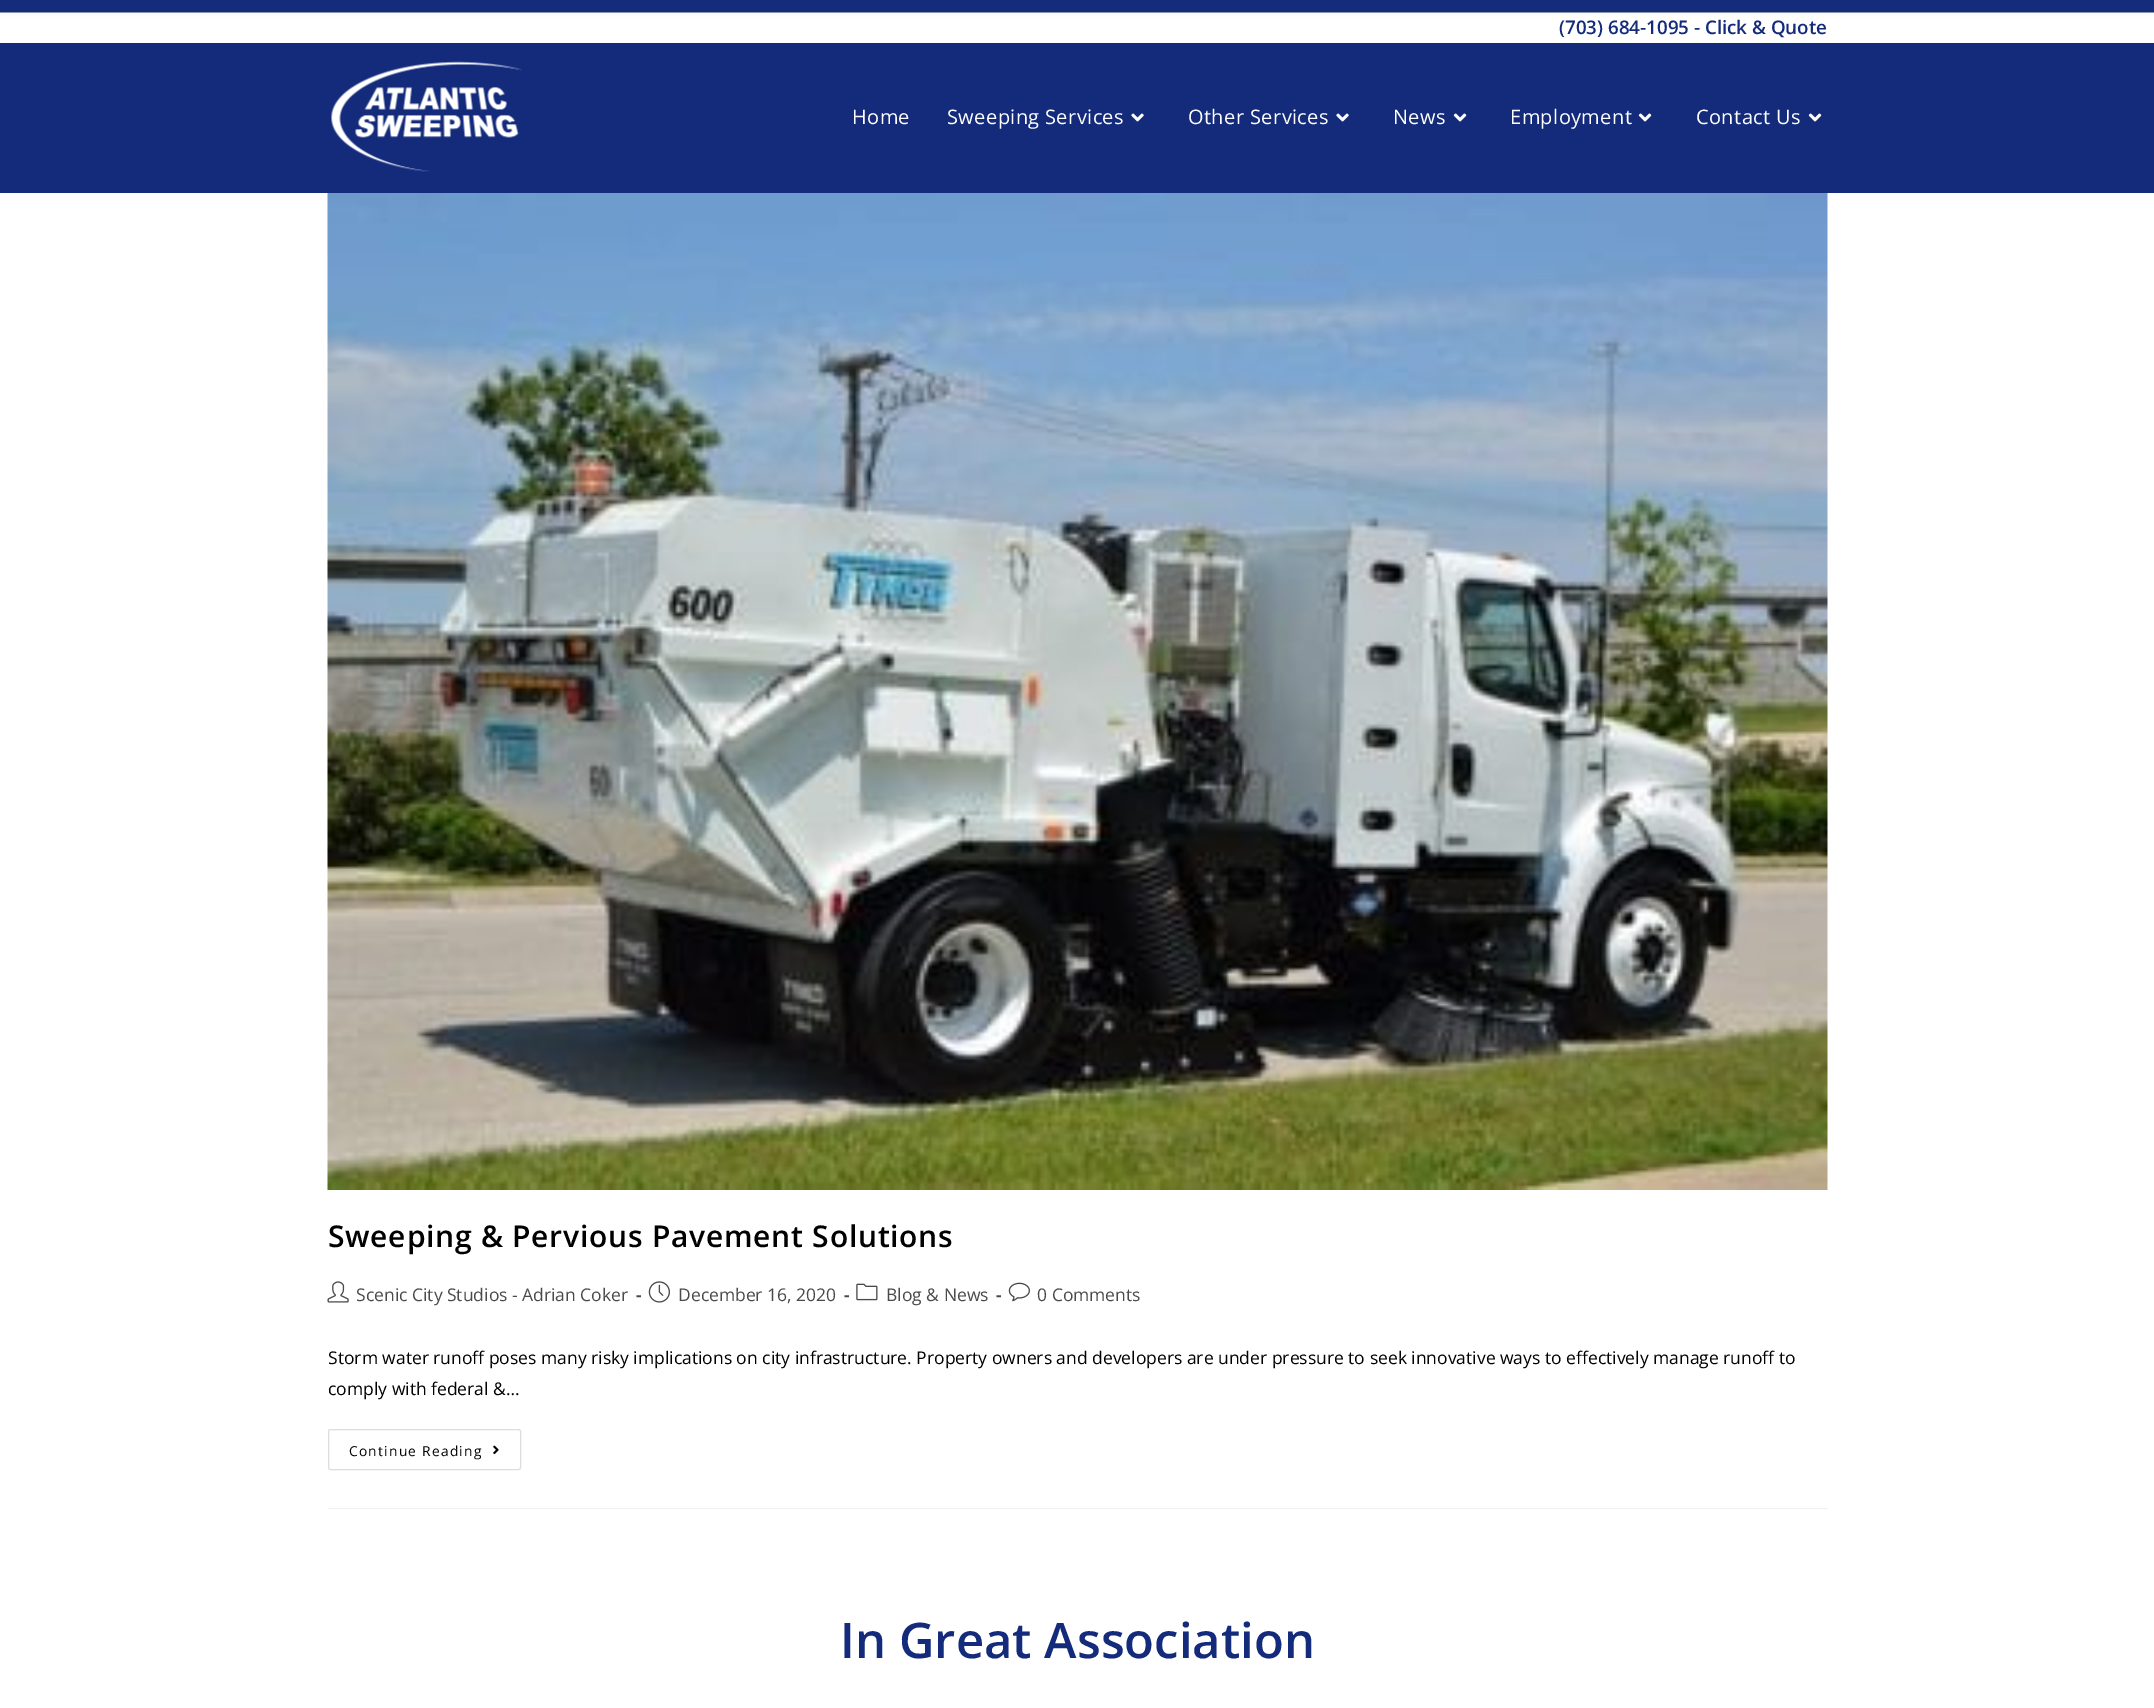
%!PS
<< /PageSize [2154 1708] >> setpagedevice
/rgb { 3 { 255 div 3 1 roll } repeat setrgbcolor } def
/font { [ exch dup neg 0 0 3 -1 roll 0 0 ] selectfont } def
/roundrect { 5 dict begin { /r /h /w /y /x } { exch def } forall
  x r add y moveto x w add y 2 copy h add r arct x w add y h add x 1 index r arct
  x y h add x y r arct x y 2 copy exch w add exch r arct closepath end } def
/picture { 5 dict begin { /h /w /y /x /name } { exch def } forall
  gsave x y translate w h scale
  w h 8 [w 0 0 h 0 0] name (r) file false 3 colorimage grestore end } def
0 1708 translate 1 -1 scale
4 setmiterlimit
255 255 255 rgb
0 0 2154 1708 rectfill
(img/1.rgb) 0 0 2154 18 picture
20 43 124 rgb
0 43 2154 150 rectfill
(img/2.rgb) 331 61 191 111 picture
(img/3.rgb) 1131 113 13 9 picture
(img/3.rgb) 1336 113 13 9 picture
(img/4.rgb) 1453 113 14 9 picture
(img/4.rgb) 1638 113 14 9 picture
(img/4.rgb) 1808 113 14 9 picture
241 241 241 rgb
328 1508 1500 1 rectfill
(img/5.rgb) 327 193 1501 997 picture
(img/6.rgb) 327 1281 22 22 picture
(img/7.rgb) 648 1281 22 22 picture
(img/8.rgb) 856 1283 22 18 picture
(img/9.rgb) 1008 1282 22 20 picture
221 221 221 rgb
328.5 1429.5 192 40 2 roundrect stroke
(img/10.rgb) 493 1445 6 10 picture
/OpenSans-SemiBold 18.75 font
20 43 124 rgb
1559 34 moveto (\(703\) 684-1095 - Click & Quote) show
/OpenSans-Regular 20 font
255 255 255 rgb
852 124 moveto 0.4 0 (Home) ashow
947 124 moveto 0.4 0 (Sweeping Services) ashow
1188 124 moveto 0.4 0 (Other Services) ashow
1393 124 moveto 0.4 0 (News) ashow
1510 124 moveto 0.4 0 (Employment) ashow
1696 124 moveto 0.4 0 (Contact Us) ashow
/OpenSans-SemiBold 30 font
0 0 0 rgb
328 1247 moveto 0.75 0 (Sweeping & Pervious Pavement Solutions) ashow
/OpenSans-Regular 17.5 font
74 74 74 rgb
356 1301 moveto (Scenic City Studios - Adrian Coker) show
/OpenSans-Bold 17.5 font
636 1301 moveto (-) show
/OpenSans-Regular 17.5 font
678 1301 moveto (December 16, 2020) show
/OpenSans-Bold 17.5 font
844 1301 moveto (-) show
/OpenSans-Regular 17.5 font
886 1301 moveto (Blog & News) show
/OpenSans-Bold 17.5 font
996 1301 moveto (-) show
/OpenSans-Regular 17.5 font
1037 1301 moveto (0 Comments) show
0 0 0 rgb
328 1364 moveto (Storm water runoff poses many risky implications on city infrastructure. Property owners and developers are under pressure to seek innovative ways to effectively manage runoff to) show
328 1395 moveto (comply with federal &…) show
/OpenSans-Regular 13.75 font
349 1456 moveto 1.25 0 (Continue Reading) ashow
/OpenSans-SemiBold 49 font
20 43 124 rgb
840 1658 moveto (In Great Association) show
showpage
